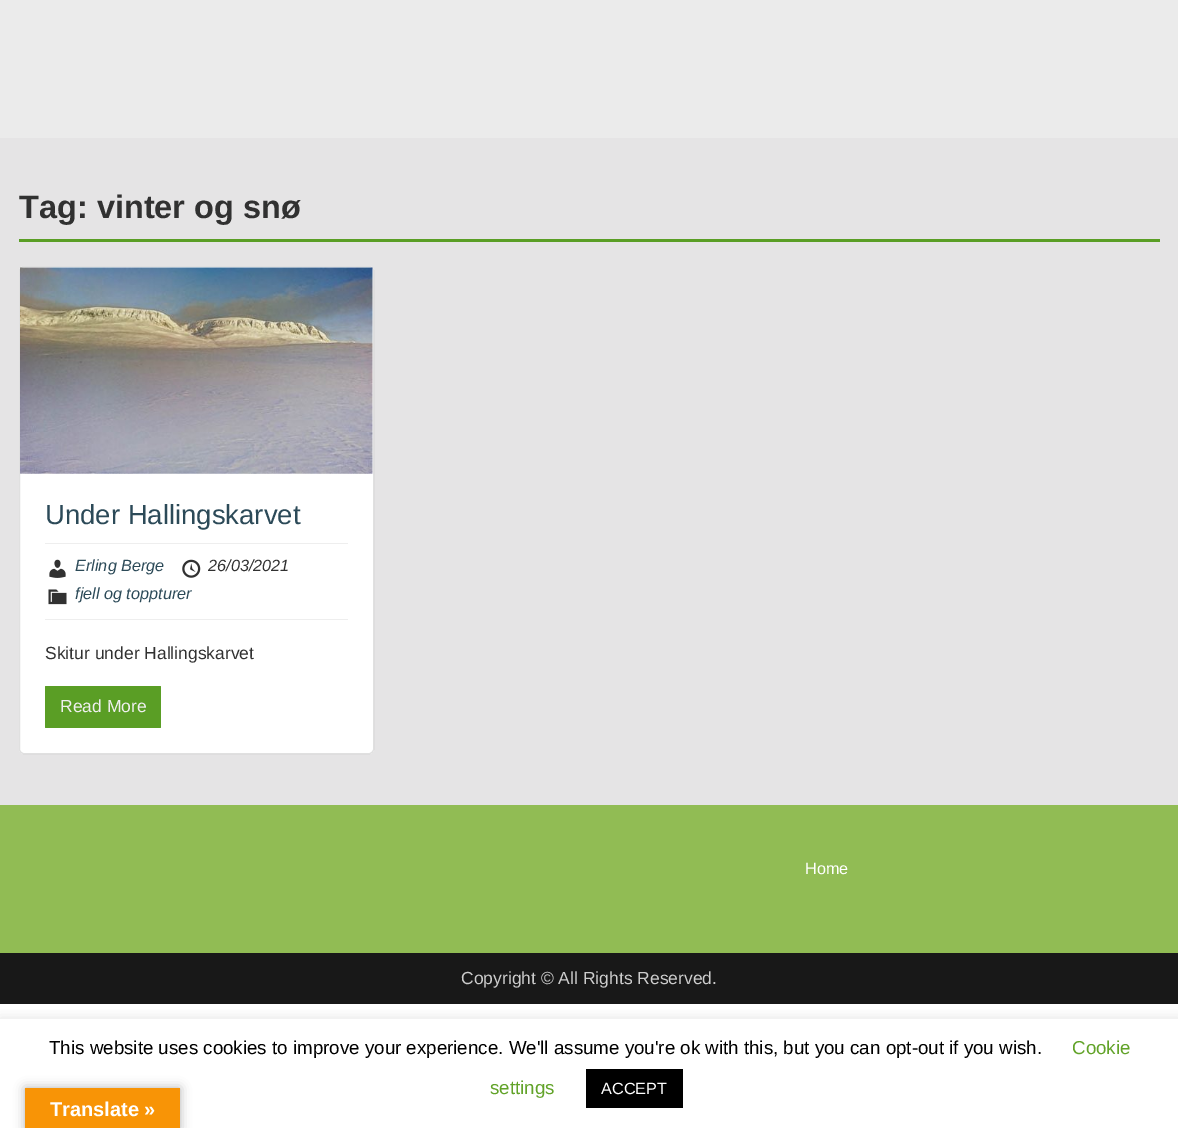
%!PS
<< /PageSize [1178 1128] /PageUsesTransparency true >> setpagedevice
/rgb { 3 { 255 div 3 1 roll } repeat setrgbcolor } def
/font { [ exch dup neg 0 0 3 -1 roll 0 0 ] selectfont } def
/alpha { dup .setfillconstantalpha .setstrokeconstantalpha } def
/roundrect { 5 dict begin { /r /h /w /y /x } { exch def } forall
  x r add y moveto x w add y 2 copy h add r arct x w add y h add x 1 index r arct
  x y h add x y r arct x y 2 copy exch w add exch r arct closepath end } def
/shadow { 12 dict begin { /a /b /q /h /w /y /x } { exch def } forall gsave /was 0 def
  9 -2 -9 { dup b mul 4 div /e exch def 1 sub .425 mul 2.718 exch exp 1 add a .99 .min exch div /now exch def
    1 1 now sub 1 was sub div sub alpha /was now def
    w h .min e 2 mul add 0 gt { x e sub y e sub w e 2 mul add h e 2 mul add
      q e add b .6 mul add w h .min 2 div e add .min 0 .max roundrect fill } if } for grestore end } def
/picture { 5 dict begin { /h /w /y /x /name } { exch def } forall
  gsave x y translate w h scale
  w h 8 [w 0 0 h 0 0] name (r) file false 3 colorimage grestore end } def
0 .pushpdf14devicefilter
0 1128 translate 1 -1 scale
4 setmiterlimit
255 255 255 rgb
0 0 1178 1128 rectfill
[
  [0 138 1178 667 229 228 229]
  [0 0 1178 138 235 235 235]
  [19 239 1141 3 90 158 37]
] { aload pop rgb rectfill } forall
255 255 255 rgb
19 266 355 488 5 roundrect fill
0.12 alpha
0 0 0 rgb
19.5 266.5 354 487 4.5 roundrect stroke
1 alpha
(img/1.rgb) 20 267 353 207 picture
238 238 238 rgb
45 543 303 1 rectfill
45 619 303 1 rectfill
(img/2.rgb) 49 559 17 19 picture
(img/3.rgb) 182 559 19 19 picture
(img/4.rgb) 48 589 19 16 picture
90 158 37 rgb
45 686 116 42 1 roundrect fill
145 188 84 rgb
0 805 1178 148 rectfill
24 24 24 rgb
0 953 1178 51 rectfill
gsave
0 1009 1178 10 rectclip
172 171 171 rgb
0 1018 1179 110 0 6 0.3 shadow
grestore
0 0 0 rgb
586 1069 97 39 rectfill
25 1088 155 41 0 5.5 0.3 shadow
248 148 6 rgb
25 1088 155 40 rectfill
/LiberationSans-Bold 32.5 font
49 49 49 rgb
19 218 moveto (Tag: vinter og snø) show
/LiberationSans-Regular 27.5 font
44 74 88 rgb
45 524 moveto (Under Hallingskarvet) show
/LiberationSans-Italic 16.25 font
75 571 moveto (Erling Berge) show
49 49 49 rgb
208 571 moveto (26/03/2021) show
44 74 88 rgb
75 599 moveto (fjell og toppturer) show
/LiberationSans-Regular 17.5 font
49 49 49 rgb
45 659 moveto (Skitur under Hallingskarvet) show
239 239 239 rgb
60 712 moveto (Read More) show
/LiberationSans-Regular 16.25 font
255 255 255 rgb
805 874 moveto (Home) show
/LiberationSans-Regular 17.5 font
204 204 204 rgb
461 984 moveto (Copyright © All Rights Reserved.) show
/LiberationSans-Regular 18.75 font
0 0 0 rgb
49 1054 moveto (This website uses cookies to improve your experience. We'll assume you're ok with this, but you can opt-out if you wish.) show
98 163 41 rgb
1072 1054 moveto (Cookie) show
490 1094 moveto (settings) show
/LiberationSans-Regular 16.25 font
255 255 255 rgb
601 1094 moveto (ACCEPT) show
/LiberationSans-Bold 20 font
50 1116 moveto (Translate ») show
.poppdf14devicefilter showpage
